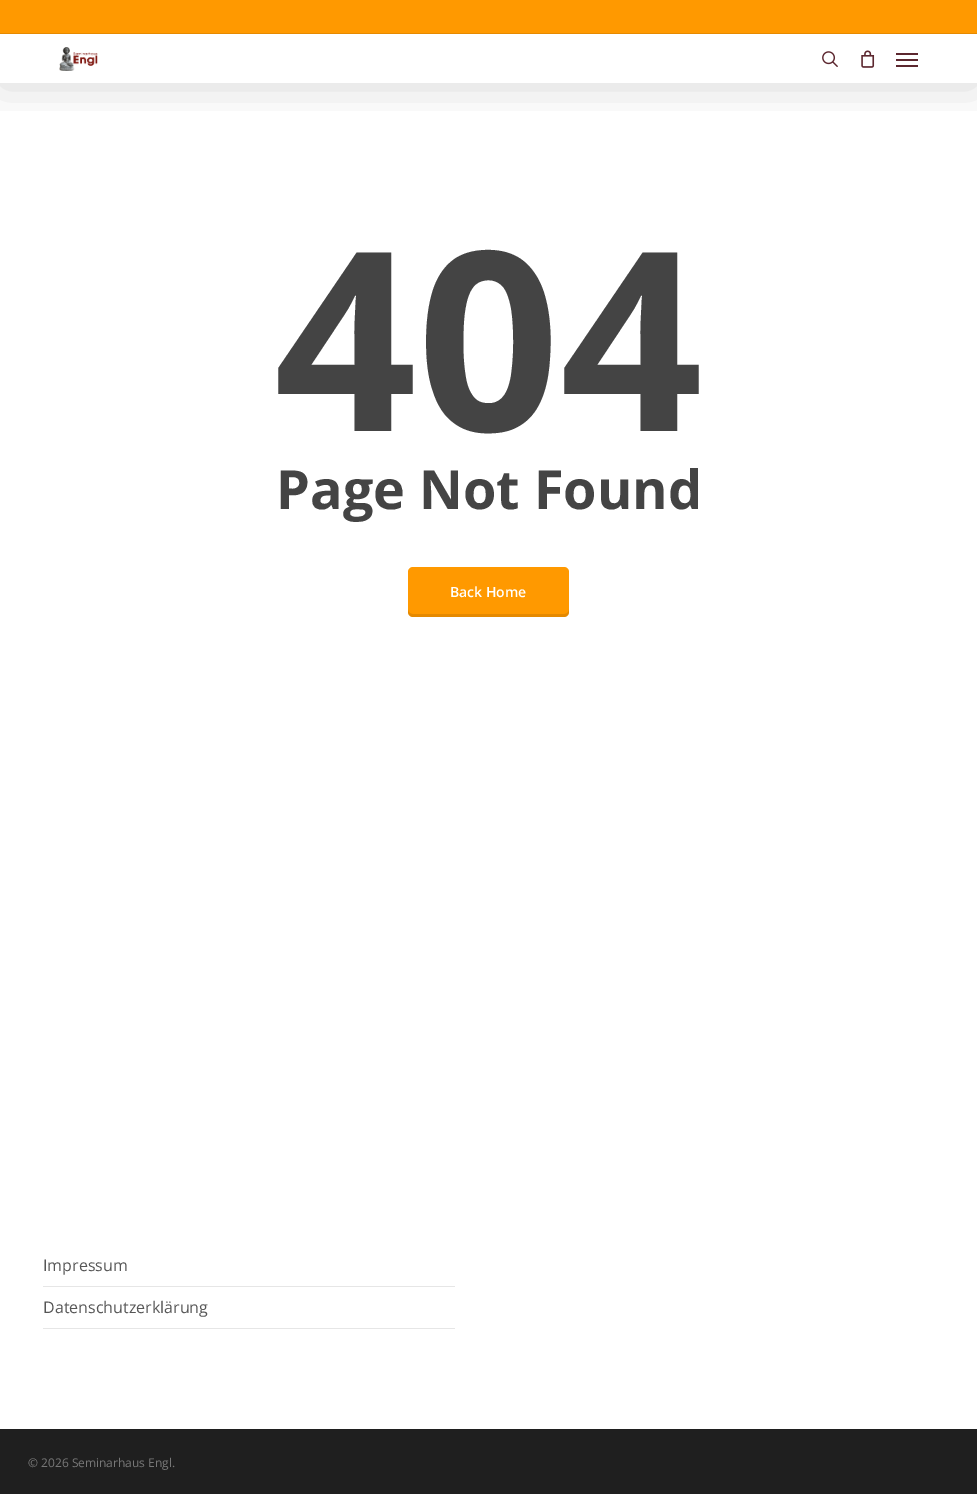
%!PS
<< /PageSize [977 1494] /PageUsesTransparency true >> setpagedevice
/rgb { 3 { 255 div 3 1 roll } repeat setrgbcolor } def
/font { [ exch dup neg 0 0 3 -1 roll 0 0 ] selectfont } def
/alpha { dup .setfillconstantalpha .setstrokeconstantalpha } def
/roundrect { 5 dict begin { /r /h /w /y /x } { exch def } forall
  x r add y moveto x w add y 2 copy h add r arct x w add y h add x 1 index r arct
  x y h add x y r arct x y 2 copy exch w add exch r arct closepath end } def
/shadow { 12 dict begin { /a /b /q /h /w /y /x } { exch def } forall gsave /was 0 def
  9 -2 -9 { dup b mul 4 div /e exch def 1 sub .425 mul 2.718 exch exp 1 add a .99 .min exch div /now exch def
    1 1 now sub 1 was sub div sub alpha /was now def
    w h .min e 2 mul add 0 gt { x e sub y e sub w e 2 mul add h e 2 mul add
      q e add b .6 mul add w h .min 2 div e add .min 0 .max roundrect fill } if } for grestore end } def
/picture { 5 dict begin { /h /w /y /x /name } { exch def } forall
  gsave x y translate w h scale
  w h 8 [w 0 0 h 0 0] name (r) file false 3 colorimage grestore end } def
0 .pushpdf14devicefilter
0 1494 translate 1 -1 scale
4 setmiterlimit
255 255 255 rgb
0 0 977 1494 rectfill
gsave
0 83 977 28 rectclip
0 0 0 rgb
0 3 977 83 0 22.5 0.15 shadow
grestore
255 153 0 rgb
0 0 977 33 rectfill
230 138 0 rgb
0 33 977 1 rectfill
(img/1.rgb) 59 47 39 24 picture
(img/2.rgb) 822 51 16 16 picture
(img/3.rgb) 861 50 14 18 picture
[
  [896 53 22 2 92 39 47]
  [896 65 22 2 92 39 47]
  [896 59 22 2 92 39 47]
] { aload pop rgb rectfill } forall
255 153 0 rgb
408 567 161 50 5 roundrect fill
0.1 alpha
0 0 0 rgb
408 609 moveto 408 612 lineto 408 615 410 617 413 617 curveto 564 617 lineto 567 617 569 615 569 612 curveto 569 609 lineto 569 612 567 614 564 614 curveto 413 614 lineto 410 614 408 612 408 609 curveto closepath fill
1 alpha
[
  [43 1286 412 1 230 230 230]
  [43 1328 412 1 230 230 230]
  [0 1429 977 65 31 31 31]
] { aload pop rgb rectfill } forall
/OpenSans-Bold 250 font
68 68 68 rgb
274 431 moveto (404) show
/OpenSans-Bold 54 font
276 509 moveto (Page Not Found) show
/OpenSans-SemiBold 14 font
255 255 255 rgb
450 597 moveto (Back Home) show
/OpenSans-Regular 16 font
86 86 86 rgb
43 1271 moveto (Impressum) show
43 1313 moveto (Datenschutzerklärung) show
/OpenSans-Regular 12 font
119 119 119 rgb
28 1467 moveto (© 2026 Seminarhaus Engl.) show
.poppdf14devicefilter showpage
